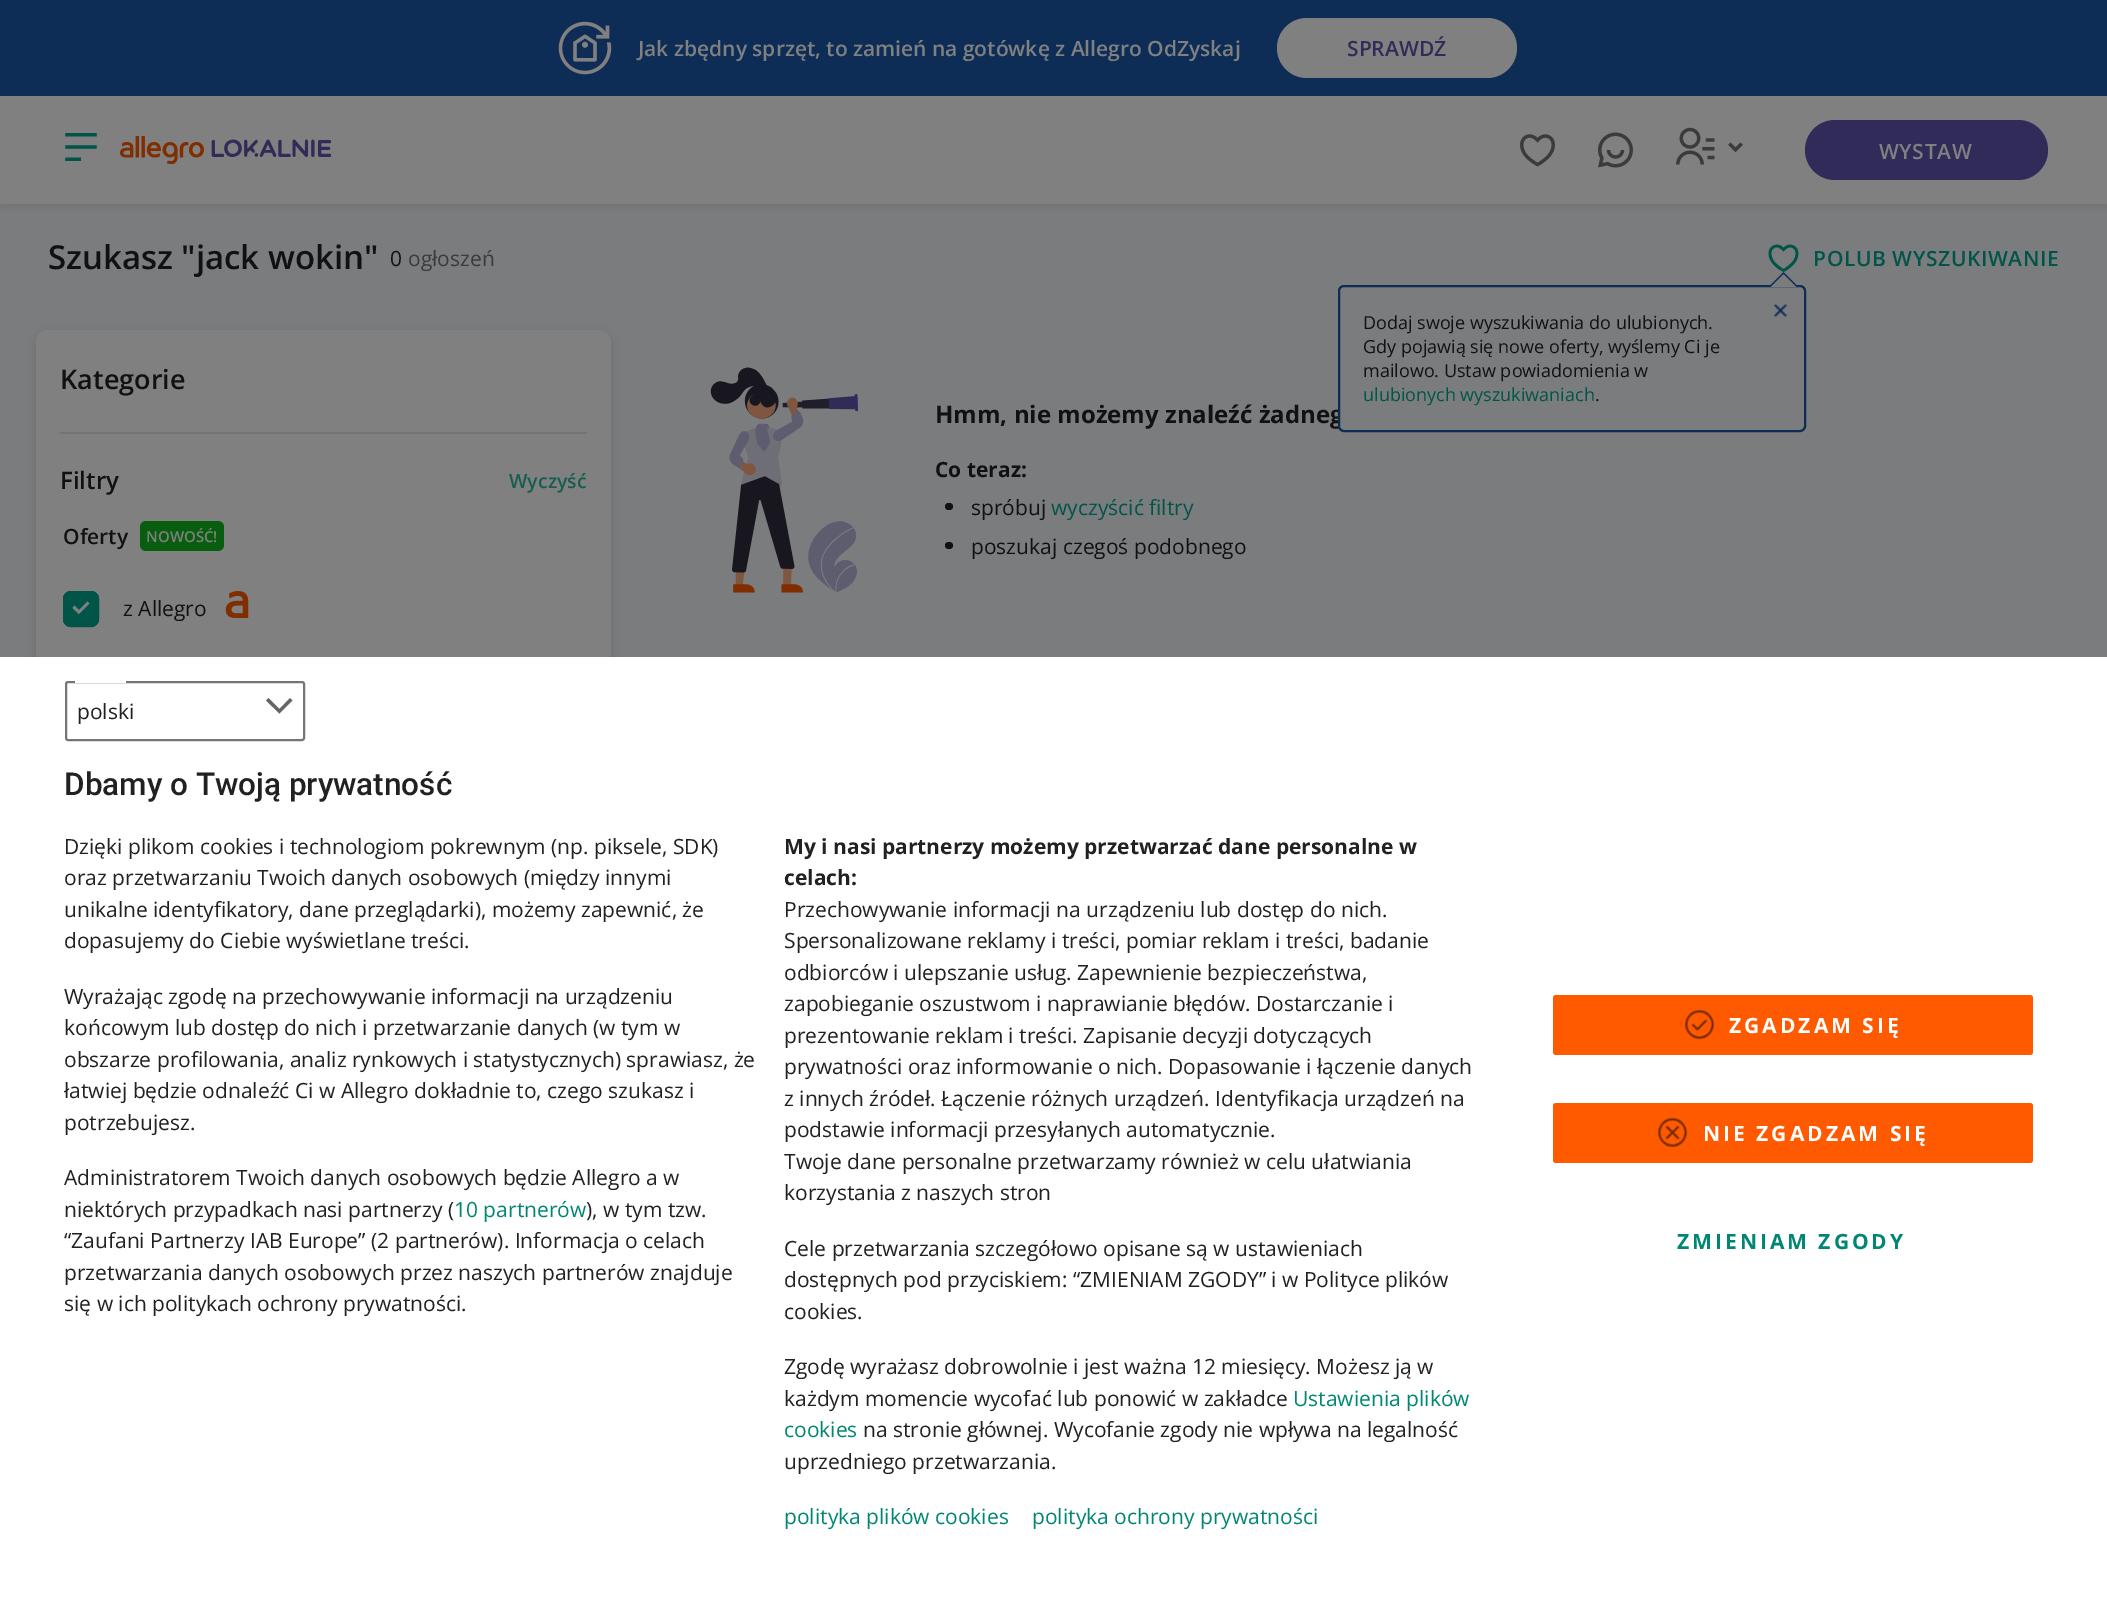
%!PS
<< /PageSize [2107 1609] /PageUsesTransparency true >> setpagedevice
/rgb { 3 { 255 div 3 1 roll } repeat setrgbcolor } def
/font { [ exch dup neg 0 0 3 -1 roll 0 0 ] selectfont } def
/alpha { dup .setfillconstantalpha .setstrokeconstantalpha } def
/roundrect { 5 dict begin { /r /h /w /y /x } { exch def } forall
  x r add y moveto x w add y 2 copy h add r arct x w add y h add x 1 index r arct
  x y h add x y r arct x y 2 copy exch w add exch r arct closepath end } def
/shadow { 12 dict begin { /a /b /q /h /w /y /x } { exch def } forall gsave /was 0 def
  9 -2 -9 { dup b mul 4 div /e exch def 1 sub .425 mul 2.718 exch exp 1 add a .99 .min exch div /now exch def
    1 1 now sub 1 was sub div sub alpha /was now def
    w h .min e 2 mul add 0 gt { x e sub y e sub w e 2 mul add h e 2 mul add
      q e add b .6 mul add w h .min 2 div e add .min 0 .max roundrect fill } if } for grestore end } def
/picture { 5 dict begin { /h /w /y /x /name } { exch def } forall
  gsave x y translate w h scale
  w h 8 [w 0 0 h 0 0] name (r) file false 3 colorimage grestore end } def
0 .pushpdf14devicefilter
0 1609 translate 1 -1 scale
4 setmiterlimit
122 124 126 rgb
0 0 2107 1609 rectfill
14 45 86 rgb
0 0 2107 96 rectfill
(img/1.rgb) 558 21 54 54 picture
128 128 128 rgb
1277 18 240 60 30 roundrect fill
0 0 0 rgb
0 99 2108 108 0 4.5 0.1 shadow
128 128 128 rgb
0 96 2107 108 rectfill
(img/2.rgb) 65 133 32 28 picture
(img/3.rgb) 120 136 212 28 picture
(img/4.rgb) 1520 134 35 33 picture
(img/5.rgb) 1598 132 35 36 picture
(img/6.rgb) 1676 127 39 38 picture
(img/7.rgb) 1728 142 15 11 picture
49 43 89 rgb
1805 120 243 60 30 roundrect fill
(img/8.rgb) 1768 244 31 29 picture
0 0 0 rgb
36 333 575 1050 12 6 0.16 shadow
128 128 128 rgb
36 330 575 1050 12 roundrect fill
116 116 116 rgb
60 432 527 2 rectfill
8 93 14 rgb
140 521 84 30 6 roundrect fill
0 84 72 rgb
63 591 36 36 8 roundrect fill
128 128 128 rgb
79 614 moveto 72.5 608 lineto 74.5 605.5 lineto 79 610 lineto 87.5 601.5 lineto 89.5 603.5 lineto closepath fill
0 84 72 rgb
3 setlinewidth
64.5 592.5 33 33 6.5 roundrect stroke
(img/9.rgb) 225 591 24 27 picture
(img/10.rgb) 710 367 149 226 picture
17 17 17 rgb
945 503 8 7 3.5 roundrect fill
945 542 8 7 3.5 roundrect fill
255 255 255 rgb
0 657 2107 952 rectfill
117 117 117 rgb
2 setlinewidth
66 682 238 58 2 roundrect stroke
255 255 255 rgb
75 681 51 2 rectfill
101 101 101 rgb
266 700.5 moveto 268.5 698 lineto 279.5 709 lineto 290 698 lineto 292.5 700.5 lineto 279.5 713.5 lineto closepath fill
255 90 0 rgb
1553 995 480 60 3 roundrect fill
(img/11.rgb) 1684 1009 31 31 picture
1553 1103 480 60 3 roundrect fill
(img/12.rgb) 1657 1117 31 31 picture
/OpenSans-SemiBold 21 font
128 128 128 rgb
638 56 moveto (Jak zbędny sprzęt, to zamień na gotówkę z Allegro OdZyskaj) show
49 43 89 rgb
1347 56 moveto (SPRAWDŹ) show
128 128 128 rgb
1879 159 moveto 0.6 0 (WYSTAW) ashow
/OpenSans-SemiBold 33 font
17 17 17 rgb
48 269 moveto (Szukasz "jack wokin") show
/OpenSans-Regular 21 font
390 266 moveto (0) show
59 59 59 rgb
408 266 moveto (ogłoszeń) show
/OpenSans-SemiBold 21 font
0 84 72 rgb
1813 266 moveto 0.6 0 (POLUB WYSZUKIWANIE) ashow
/OpenSans-SemiBold 27 font
17 17 17 rgb
60 389 moveto (Kategorie) show
/OpenSans-SemiBold 24 font
60 489 moveto (Filtry) show
/OpenSans-SemiBold 19.5 font
22 93 82 rgb
509 488 moveto (Wyczyść) show
/OpenSans-SemiBold 21 font
17 17 17 rgb
63 544 moveto (Oferty) show
/OpenSans-SemiBold 15 font
128 128 128 rgb
146 542 moveto (NOWOŚĆ!) show
/OpenSans-Regular 21 font
17 17 17 rgb
123 616 moveto (z Allegro) show
/OpenSans-Bold 24 font
935 423 moveto (Hmm, nie możemy znaleźć żadneg) show
/OpenSans-Bold 21 font
935 477 moveto (Co teraz:) show
/OpenSans-Regular 21 font
971 515 moveto (spróbuj) show
0 84 72 rgb
1051 515 moveto (wyczyścić filtry) show
17 17 17 rgb
971 554 moveto (poszukaj czegoś podobnego) show
33 33 33 rgb
77 719 moveto (polski) show
/Roboto-Medium 31.5 font
64 795 moveto (Dbamy o Twoją prywatność) show
/OpenSans-Regular 21 font
[
  [(Dzięki plikom cookies i technologiom pokrewnym \(np. piksele, SDK\)) 64 854]
  [(oraz przetwarzaniu Twoich danych osobowych \(między innymi) 64 885]
  [(unikalne identyfikatory, dane przeglądarki\), możemy zapewnić, że) 64 917]
  [(dopasujemy do Ciebie wyświetlane treści.) 64 948]
  [(Wyrażając zgodę na przechowywanie informacji na urządzeniu) 64 1004]
  [(końcowym lub dostęp do nich i przetwarzanie danych \(w tym w) 64 1035]
  [(obszarze profilowania, analiz rynkowych i statystycznych\) sprawiasz, że) 64 1067]
  [(łatwiej będzie odnaleźć Ci w Allegro dokładnie to, czego szukasz i) 64 1098]
  [(potrzebujesz.) 64 1130]
  [(Administratorem Twoich danych osobowych będzie Allegro a w) 64 1185]
  [(niektórych przypadkach nasi partnerzy \() 64 1217]
] { aload pop moveto show } forall
0 134 115 rgb
454 1217 moveto (10 partnerów) show
33 33 33 rgb
[
  [(\), w tym tzw.) 586 1217]
  [(“Zaufani Partnerzy IAB Europe” \(2 partnerów\). Informacja o celach) 64 1248]
  [(przetwarzania danych osobowych przez naszych partnerów znajduje) 64 1280]
  [(się w ich politykach ochrony prywatności.) 64 1311]
] { aload pop moveto show } forall
/OpenSans-Bold 21 font
784 854 moveto (My i nasi partnerzy możemy przetwarzać dane personalne w) show
784 885 moveto (celach:) show
/OpenSans-Regular 21 font
[
  [(Przechowywanie informacji na urządzeniu lub dostęp do nich.) 784 917]
  [(Spersonalizowane reklamy i treści, pomiar reklam i treści, badanie) 784 948]
  [(odbiorców i ulepszanie usług. Zapewnienie bezpieczeństwa,) 784 980]
  [(zapobieganie oszustwom i naprawianie błędów. Dostarczanie i) 784 1011]
  [(prezentowanie reklam i treści. Zapisanie decyzji dotyczących) 784 1043]
  [(prywatności oraz informowanie o nich. Dopasowanie i łączenie danych) 784 1074]
  [(z innych źródeł. Łączenie różnych urządzeń. Identyfikacja urządzeń na) 784 1106]
  [(podstawie informacji przesyłanych automatycznie.) 784 1137]
  [(Twoje dane personalne przetwarzamy również w celu ułatwiania) 784 1169]
  [(korzystania z naszych stron) 784 1200]
  [(Cele przetwarzania szczegółowo opisane są w ustawieniach) 784 1256]
  [(dostępnych pod przyciskiem: “ZMIENIAM ZGODY” i w Polityce plików) 784 1287]
  [(cookies.) 784 1319]
  [(Zgodę wyrażasz dobrowolnie i jest ważna 12 miesięcy. Możesz ją w) 784 1374]
  [(każdym momencie wycofać lub ponowić w zakładce) 784 1406]
] { aload pop moveto show } forall
0 134 115 rgb
1293 1406 moveto (Ustawienia plików) show
784 1437 moveto (cookies) show
33 33 33 rgb
863 1437 moveto (na stronie głównej. Wycofanie zgody nie wpływa na legalność) show
784 1469 moveto (uprzedniego przetwarzania.) show
0 134 115 rgb
784 1524 moveto (polityka plików cookies) show
1032 1524 moveto (polityka ochrony prywatności) show
/OpenSans-Bold 21 font
255 255 255 rgb
1729 1033 moveto 3 0 (ZGADZAM SIĘ) ashow
1703 1141 moveto 3 0 (NIE ZGADZAM SIĘ) ashow
0 134 115 rgb
1677 1249 moveto 3 0 (ZMIENIAM ZGODY) ashow
122 124 126 rgb
1339 286 466 145 5 roundrect gsave fill grestore
14 45 86 rgb
stroke
(img/13.rgb) 1770 272 27 15 picture
(img/14.rgb) 1773 304 15 13 picture
/OpenSans-Regular 18 font
17 17 17 rgb
[
  [(Dodaj swoje wyszukiwania do ulubionych.) 1363 329]
  [(Gdy pojawią się nowe oferty, wyślemy Ci je) 1363 353]
  [(mailowo. Ustaw powiadomienia w) 1363 377]
] { aload pop moveto show } forall
0 84 72 rgb
1363 401 moveto (ulubionych wyszukiwaniach) show
17 17 17 rgb
1595 401 moveto (.) show
.poppdf14devicefilter showpage
